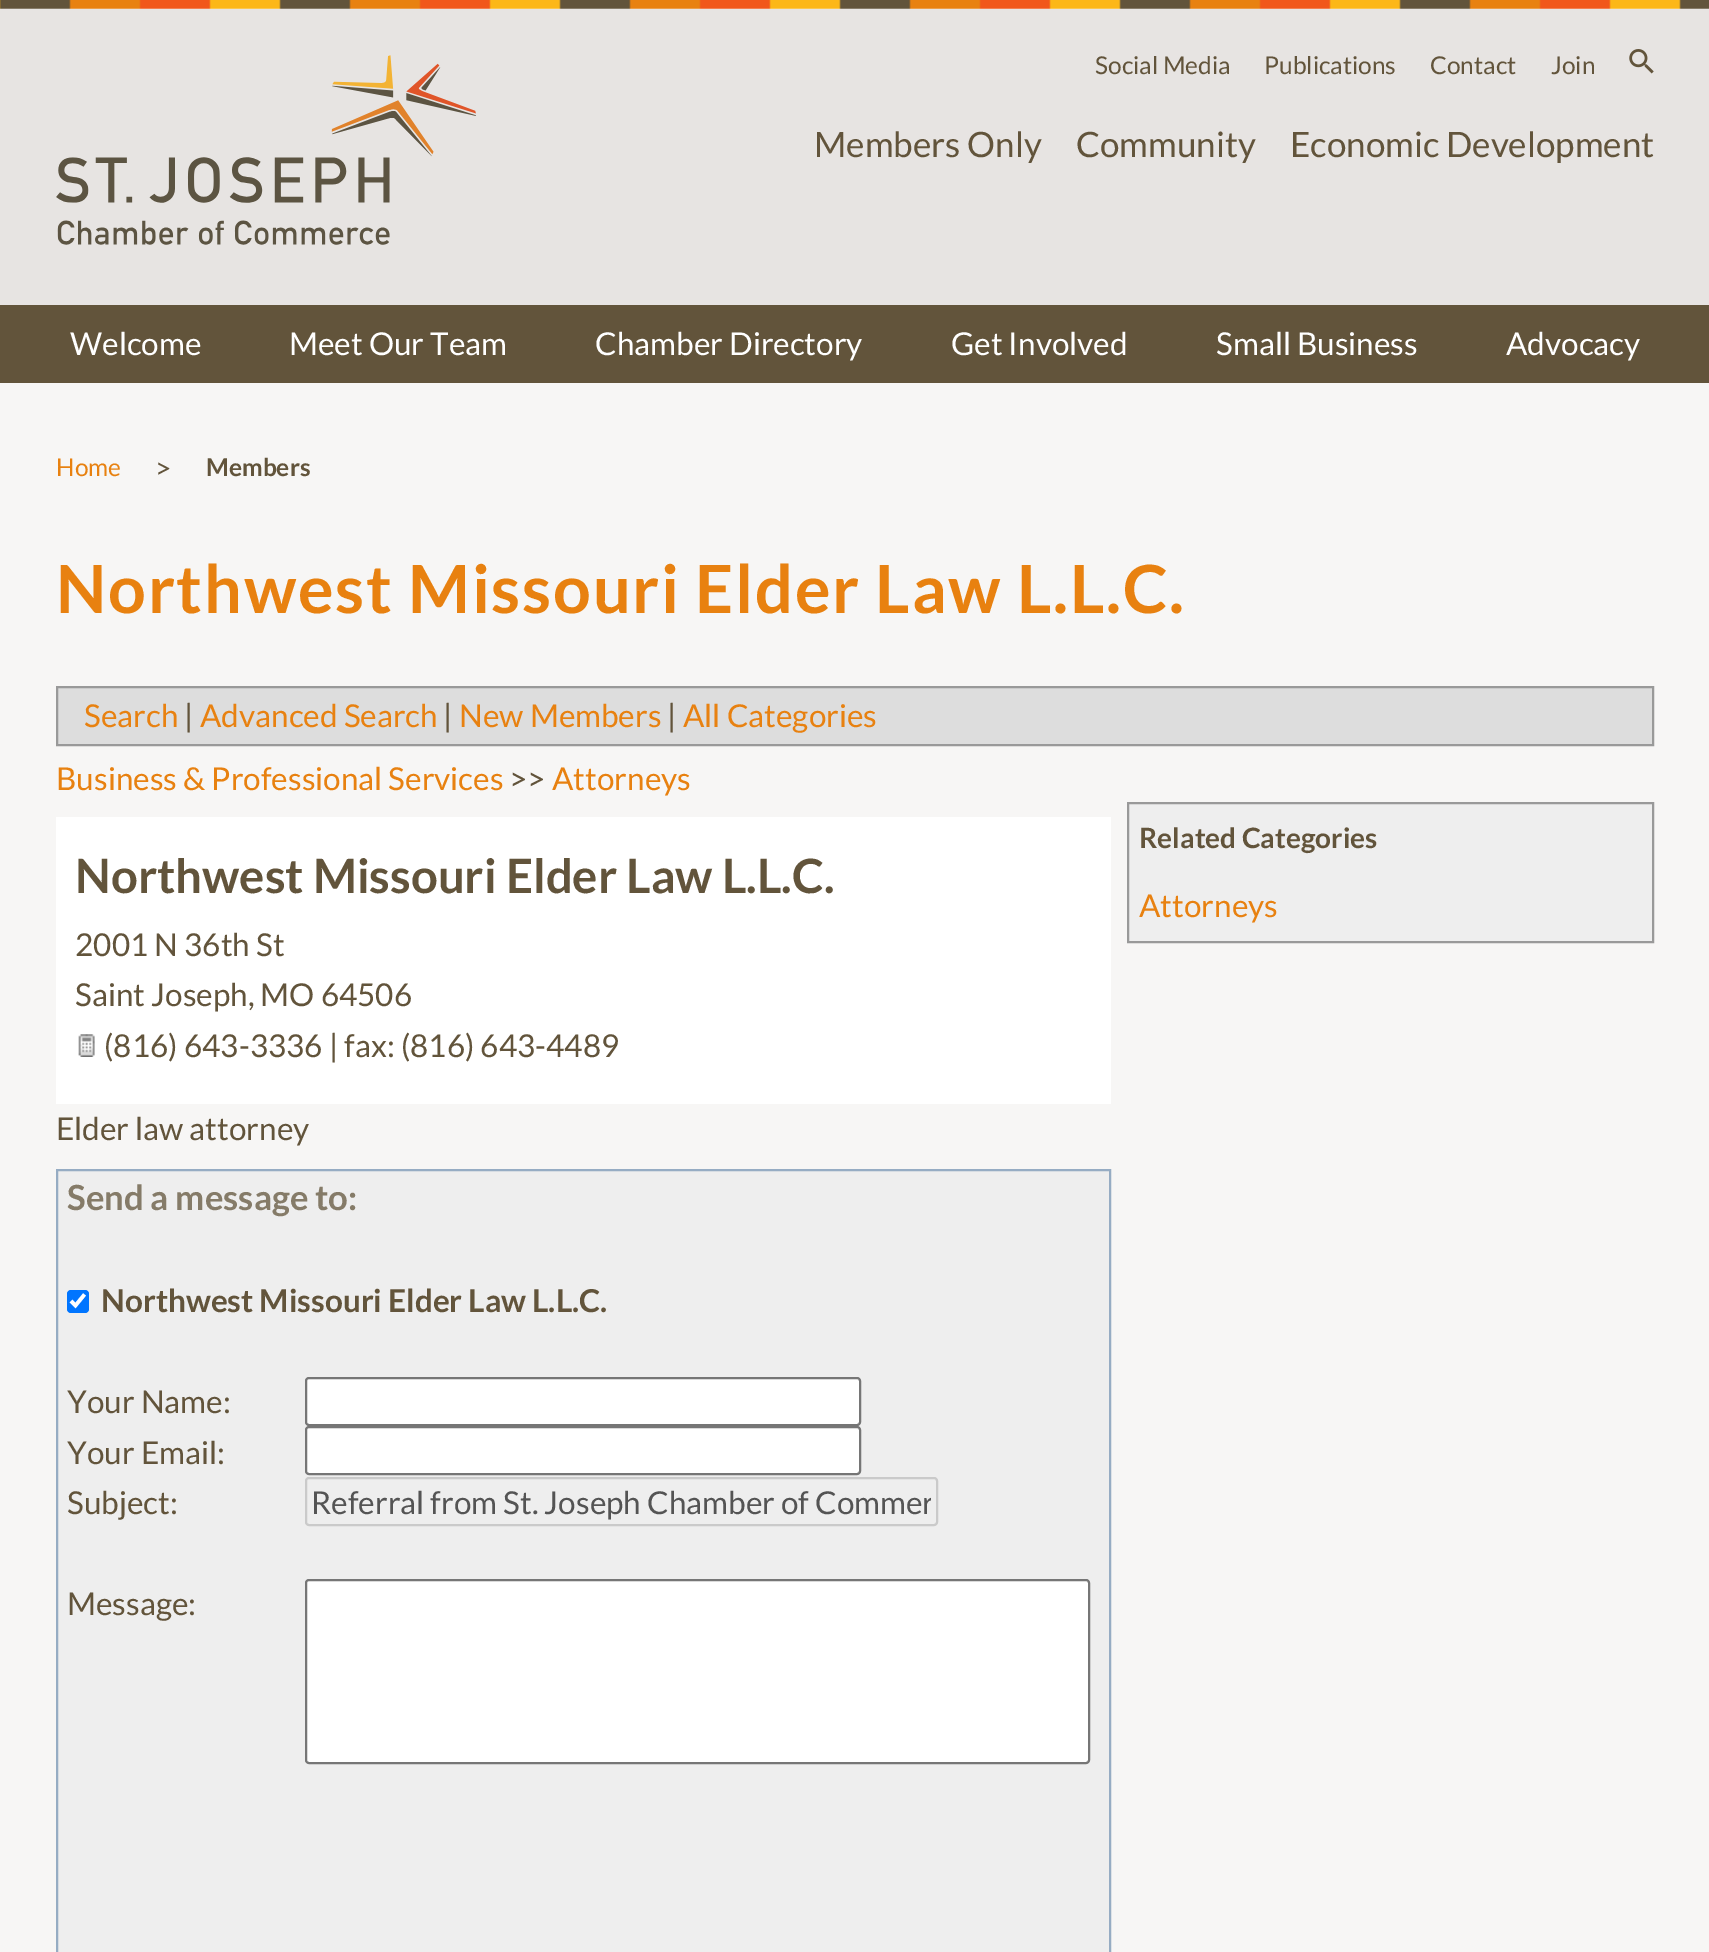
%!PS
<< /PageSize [1709 1952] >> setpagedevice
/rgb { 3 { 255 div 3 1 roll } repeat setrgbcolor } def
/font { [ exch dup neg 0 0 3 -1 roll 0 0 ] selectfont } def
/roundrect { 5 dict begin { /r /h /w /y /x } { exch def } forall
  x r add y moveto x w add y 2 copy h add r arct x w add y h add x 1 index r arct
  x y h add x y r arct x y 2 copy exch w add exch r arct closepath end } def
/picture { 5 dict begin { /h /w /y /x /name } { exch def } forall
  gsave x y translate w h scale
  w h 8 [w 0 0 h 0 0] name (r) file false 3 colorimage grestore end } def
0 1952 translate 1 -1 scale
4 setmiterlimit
247 246 245 rgb
0 0 1709 1952 rectfill
(img/1.rgb) 0 0 1709 9 picture
231 228 226 rgb
0 9 1709 296 rectfill
(img/2.rgb) 56 55 420 190 picture
(img/3.rgb) 1629 49 25 25 picture
98 84 59 rgb
0 305 1709 78 rectfill
221 221 221 rgb
57 687 moveto 1653 687 lineto 1653 745 lineto 57 745 lineto closepath gsave fill grestore
153 153 153 rgb
2 setlinewidth
stroke
255 255 255 rgb
56 817 1055 287 rectfill
(img/4.rgb) 78 1034 17 23 picture
238 238 238 rgb
57 1170 moveto 1110 1170 lineto 1110 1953 lineto 57 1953 lineto closepath gsave fill grestore
150 172 195 rgb
stroke
0 117 255 rgb
67 1290 22 23 4 roundrect fill
255 255 255 rgb
3.6 setlinewidth
71 1301 moveto 75.5 1305.5 lineto 84.5 1294.5 lineto stroke
306 1378 554 47 3 roundrect gsave fill grestore
118 118 118 rgb
2 setlinewidth
stroke
255 255 255 rgb
306 1427 554 47 3 roundrect gsave fill grestore
118 118 118 rgb
stroke
202 202 202 rgb
306 1478 631 47 3 roundrect stroke
255 255 255 rgb
306 1580 783 183 3 roundrect gsave fill grestore
118 118 118 rgb
stroke
238 238 238 rgb
1128 803 moveto 1653 803 lineto 1653 942 lineto 1128 942 lineto closepath gsave fill grestore
153 153 153 rgb
stroke
/Lato-Regular 24.5 font
98 84 59 rgb
[
  [(Social Media) 1095 74]
  [(Publications) 1264 74]
  [(Contact) 1430 74]
  [(Join) 1551 74]
] { aload pop moveto show } forall
/Lato-Regular 35 font
[
  [(Members Only) 814 157]
  [(Community) 1076 157]
  [(Economic Development) 1290 157]
] { aload pop moveto show } forall
/Lato-Regular 31.5 font
255 255 255 rgb
[
  [(Welcome) 70 355]
  [(Meet Our Team) 289 355]
  [(Chamber Directory) 595 355]
  [(Get Involved) 951 355]
  [(Small Business) 1216 355]
  [(Advocacy) 1506 355]
] { aload pop moveto show } forall
/Lato-Regular 24.5 font
232 129 16 rgb
56 476 moveto (Home) show
/Lato-Regular 28 font
98 84 59 rgb
155 478 moveto (>) show
/Lato-Bold 24.5 font
206 476 moveto (Members) show
/Lato-Bold 66.5 font
232 129 16 rgb
56 613 moveto 1.75 0 (Northwest Missouri Elder Law L.L.C.) ashow
/Lato-Regular 31.5 font
84 727 moveto (Search) show
98 84 59 rgb
184 727 moveto (|) show
232 129 16 rgb
200 727 moveto (Advanced Search) show
98 84 59 rgb
443 727 moveto (|) show
232 129 16 rgb
459 727 moveto (New Members) show
98 84 59 rgb
667 727 moveto (|) show
232 129 16 rgb
683 727 moveto (All Categories) show
56 790 moveto (Business & Professional Services) show
98 84 59 rgb
509 790 moveto (>>) show
232 129 16 rgb
552 790 moveto (Attorneys) show
/Lato-Bold 47.25 font
98 84 59 rgb
75 893 moveto (Northwest Missouri Elder Law L.L.C.) show
/Lato-Regular 31.5 font
[
  [(2001 N 36th St) 75 956]
  [(Saint Joseph, MO 64506) 75 1006]
  [(\(816\) 643-3336 | fax: \(816\) 643-4489) 104 1057]
  [(Elder law attorney) 56 1140]
] { aload pop moveto show } forall
/Lato-Bold 34.75 font
133 123 104 rgb
67 1210 moveto (Send a message to:) show
/Lato-Bold 31.5 font
98 84 59 rgb
101 1312 moveto (Northwest Missouri Elder Law L.L.C.) show
/Lato-Regular 31.5 font
[
  [(Your Name:) 67 1413]
  [(Your Email:) 67 1464]
  [(Subject:) 67 1514]
] { aload pop moveto show } forall
gsave
312 1482 619 39 rectclip
84 84 84 rgb
311 1514 moveto (Referral from St. Joseph Chamber of Commer) show
grestore
67 1615 moveto (Message:) show
/Lato-Bold 28 font
1139 848 moveto (Related Categories) show
/Lato-Regular 31.5 font
232 129 16 rgb
1139 917 moveto (Attorneys) show
showpage
